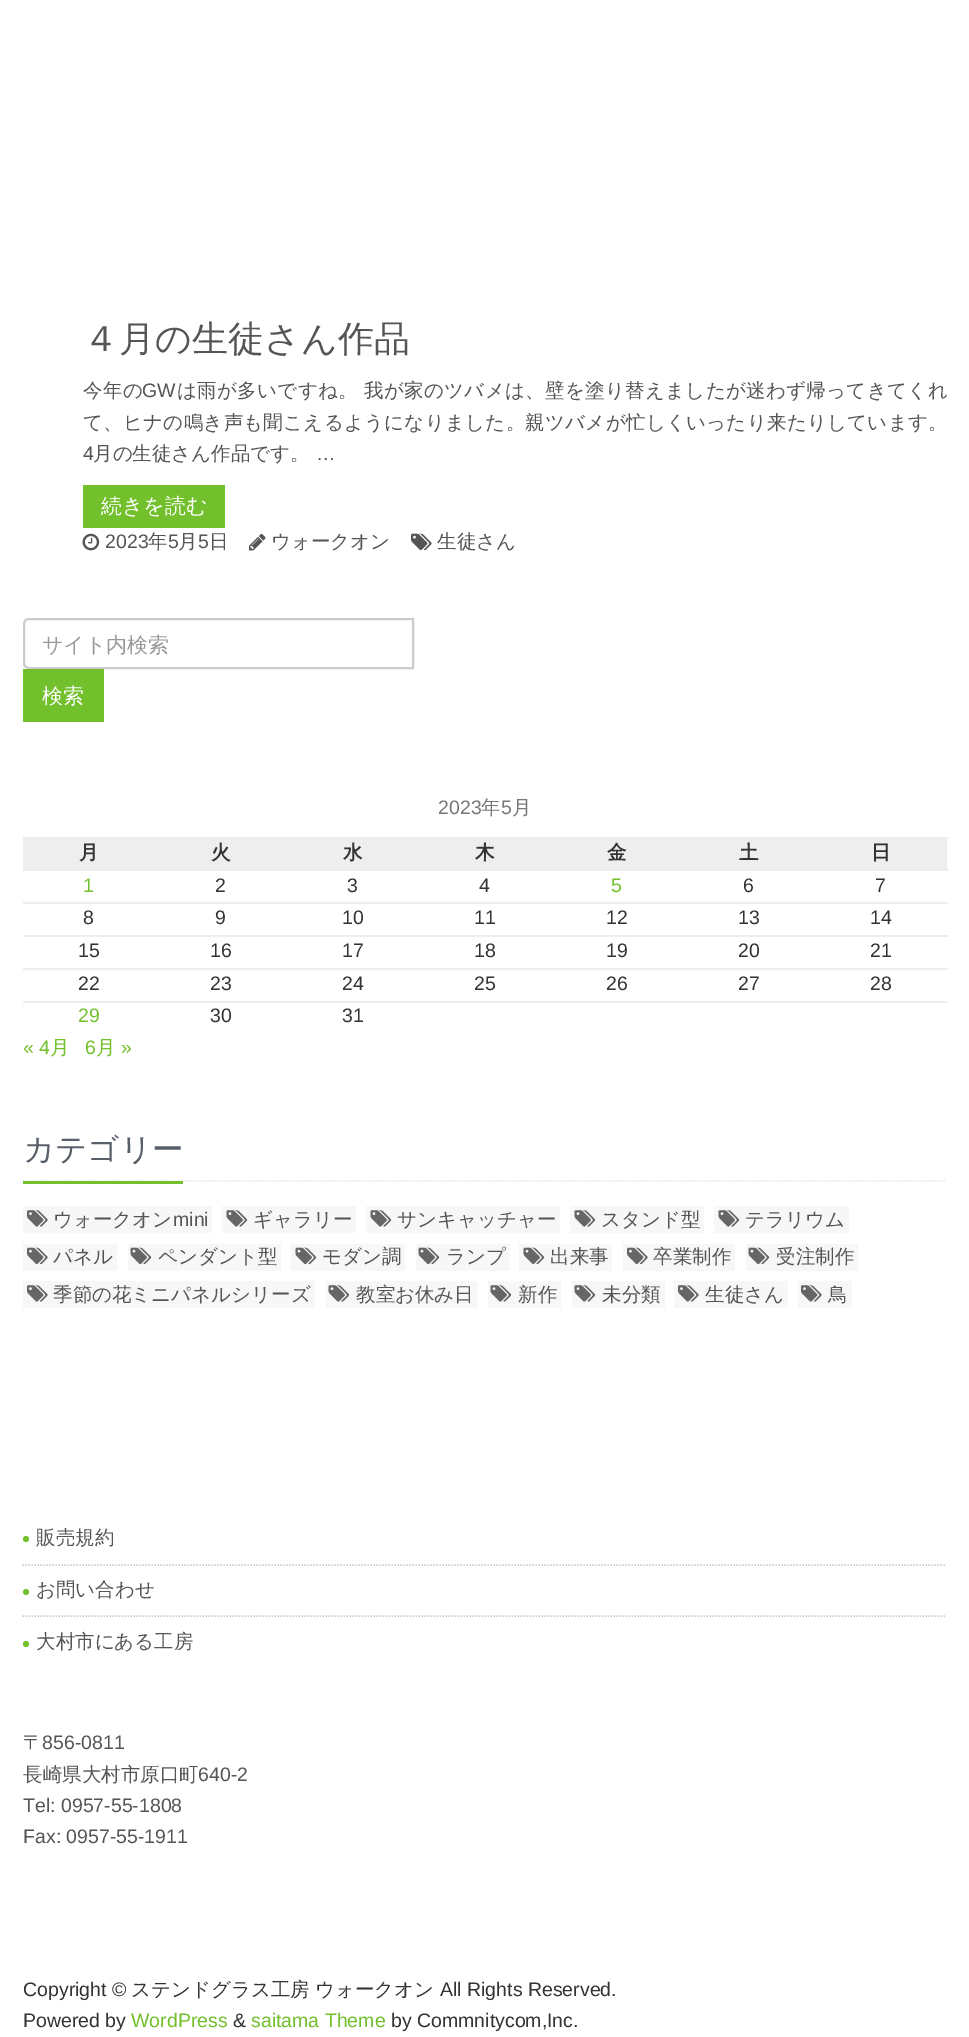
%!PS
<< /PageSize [969 2037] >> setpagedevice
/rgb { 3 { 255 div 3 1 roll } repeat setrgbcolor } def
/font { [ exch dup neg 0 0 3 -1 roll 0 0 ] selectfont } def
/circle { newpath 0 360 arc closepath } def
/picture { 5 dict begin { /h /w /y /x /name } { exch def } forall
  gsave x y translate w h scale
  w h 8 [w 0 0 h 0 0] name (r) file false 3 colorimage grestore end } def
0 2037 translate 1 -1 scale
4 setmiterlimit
255 255 255 rgb
0 0 969 2037 rectfill
114 192 44 rgb
83 485 142 43 rectfill
(img/1.rgb) 82 533 18 18 picture
(img/2.rgb) 249 533 17 18 picture
(img/3.rgb) 411 533 21 18 picture
204 204 204 rgb
2 setlinewidth
29 619 moveto 413 619 lineto 413 668 lineto 29 668 lineto 26 668 24 666 24 663 curveto 24 624 lineto 24 621 26 619 29 619 curveto closepath stroke
[
  [23 669 81 53 114 192 44]
  [23 837 924 32 238 238 238]
  [947 837 1 2 238 238 238]
  [23 869 925 2 238 238 238]
  [23 902 925 2 238 238 238]
  [23 935 925 2 238 238 238]
  [23 968 925 2 238 238 238]
  [23 1001 925 2 238 238 238]
] { aload pop rgb rectfill } forall
228 233 240 rgb
1.5 setlinewidth
[1.5 1.5] 0 setdash
22.5 1181 moveto 946.5 1181 lineto stroke
114 192 44 rgb
23 1181 160 3 rectfill
247 247 247 rgb
23 1206 189 27 rectfill
(img/4.rgb) 27 1210 21 17 picture
222 1206 134 27 rectfill
(img/5.rgb) 226 1210 22 17 picture
366 1206 194 27 rectfill
(img/5.rgb) 370 1210 22 17 picture
570 1206 134 27 rectfill
(img/5.rgb) 574 1210 22 17 picture
714 1206 135 27 rectfill
(img/5.rgb) 718 1210 22 17 picture
23 1244 94 27 rectfill
(img/6.rgb) 27 1247 21 18 picture
128 1244 153 27 rectfill
(img/7.rgb) 130 1247 22 18 picture
291 1244 114 27 rectfill
(img/7.rgb) 295 1247 22 18 picture
416 1244 94 27 rectfill
(img/7.rgb) 418 1247 22 18 picture
519 1244 93 27 rectfill
(img/7.rgb) 523 1247 22 18 picture
623 1244 112 27 rectfill
(img/6.rgb) 627 1247 21 18 picture
746 1244 112 27 rectfill
(img/7.rgb) 748 1247 22 18 picture
23 1281 292 27 rectfill
(img/4.rgb) 27 1285 21 17 picture
326 1281 151 27 rectfill
(img/5.rgb) 328 1285 22 17 picture
488 1281 73 27 rectfill
(img/5.rgb) 490 1285 22 17 picture
572 1281 93 27 rectfill
(img/5.rgb) 574 1285 22 17 picture
674 1281 114 27 rectfill
(img/4.rgb) 678 1285 21 17 picture
798 1281 54 27 rectfill
(img/4.rgb) 801 1285 21 17 picture
204 204 204 rgb
22.5 1565 moveto 946.5 1565 lineto stroke
114 192 44 rgb
26 1539 3 circle fill
204 204 204 rgb
22.5 1616 moveto 946.5 1616 lineto stroke
114 192 44 rgb
26 1592 3 circle fill
26 1644 3 circle fill
/WenQuanYiZenHei-Medium 36 font
85 85 85 rgb
83 351 moveto (４月の生徒さん作品) show
/WenQuanYiZenHei-Medium 19.5 font
83 397 moveto 0.3 0 (今年の) ashow
/LiberationSans-Regular 19.5 font
142 397 moveto 0.3 0 (GW) ashow
/WenQuanYiZenHei-Medium 19.5 font
177 397 moveto 0.3 0 (は雨が多いですね。 我が家のツバメは、壁を塗り替えましたが迷わず帰ってきてくれ) ashow
83 429 moveto 0.25 0 (て、ヒナの鳴き声も聞こえるようになりました。親ツバメが忙しくいったり来たりしています。) ashow
/LiberationSans-Regular 19.5 font
83 460 moveto (4) show
/WenQuanYiZenHei-Medium 19.5 font
93 460 moveto (月の生徒さん作品です。) show
/LiberationSans-Regular 19.5 font
316 460 moveto (…) show
/WenQuanYiZenHei-Medium 21 font
255 255 255 rgb
101 513 moveto (続きを読む) show
/LiberationSans-Regular 19.5 font
85 85 85 rgb
105 548 moveto (2023) show
/WenQuanYiZenHei-Medium 19.5 font
148 548 moveto (年) show
/LiberationSans-Regular 19.5 font
168 548 moveto (5) show
/WenQuanYiZenHei-Medium 19.5 font
178 548 moveto (月) show
/LiberationSans-Regular 19.5 font
198 548 moveto (5) show
/WenQuanYiZenHei-Medium 19.5 font
[
  [(日) 209 548]
  [(ウォークオン) 271 548]
  [(生徒さん) 437 548]
] { aload pop moveto show } forall
/WenQuanYiZenHei-Medium 21 font
153 153 153 rgb
42 652 moveto (サイト内検索) show
255 255 255 rgb
42 703 moveto (検索) show
/LiberationSans-Regular 19.5 font
119 119 119 rgb
438 814 moveto (2023) show
/WenQuanYiZenHei-Medium 19.5 font
481 814 moveto (年) show
/LiberationSans-Regular 19.5 font
501 814 moveto (5) show
/WenQuanYiZenHei-Medium 19.5 font
512 814 moveto (月) show
/WenQuanYiZenHei-Bold 19.5 font
51 51 51 rgb
[
  [(月) 79 859]
  [(火) 211 859]
  [(水) 343 859]
  [(木) 475 859]
  [(金) 607 859]
  [(土) 739 859]
  [(日) 871 859]
] { aload pop moveto show } forall
/LiberationSans-Regular 19.5 font
114 192 44 rgb
83 892 moveto (1) show
51 51 51 rgb
[
  [(2) 215 892]
  [(3) 347 892]
  [(4) 479 892]
] { aload pop moveto show } forall
114 192 44 rgb
611 892 moveto (5) show
51 51 51 rgb
[
  [(6) 743 892]
  [(7) 875 892]
  [(8) 83 924]
  [(9) 215 924]
  [(10) 342 924]
  [(11) 474 924]
  [(12) 606 924]
  [(13) 738 924]
  [(14) 870 924]
  [(15) 78 957]
  [(16) 210 957]
  [(17) 342 957]
  [(18) 474 957]
  [(19) 606 957]
  [(20) 738 957]
  [(21) 870 957]
  [(22) 78 990]
  [(23) 210 990]
  [(24) 342 990]
  [(25) 474 990]
  [(26) 606 990]
  [(27) 738 990]
  [(28) 870 990]
] { aload pop moveto show } forall
114 192 44 rgb
78 1022 moveto (29) show
51 51 51 rgb
210 1022 moveto (30) show
342 1022 moveto (31) show
114 192 44 rgb
23 1054 moveto (« 4) show
/WenQuanYiZenHei-Medium 19.5 font
50 1054 moveto (月) show
/LiberationSans-Regular 19.5 font
85 1054 moveto (6) show
/WenQuanYiZenHei-Medium 19.5 font
96 1054 moveto (月) show
/LiberationSans-Regular 19.5 font
121 1054 moveto (») show
/WenQuanYiZenHei-Medium 31.5 font
88 95 105 rgb
23 1160 moveto (カテゴリー) show
/WenQuanYiZenHei-Medium 19.5 font
85 85 85 rgb
53 1226 moveto (ウォークオン) show
/LiberationSans-Regular 19.5 font
173 1226 moveto (mini) show
/WenQuanYiZenHei-Medium 19.5 font
[
  [(ギャラリー) 253 1226]
  [(サンキャッチャー) 397 1226]
  [(スタンド型) 601 1226]
  [(テラリウム) 745 1226]
  [(パネル) 53 1263]
  [(ペンダント型) 158 1263]
  [(モダン調) 322 1263]
  [(ランプ) 446 1263]
  [(出来事) 550 1263]
  [(卒業制作) 653 1263]
  [(受注制作) 776 1263]
  [(季節の花ミニパネルシリーズ) 53 1301]
  [(教室お休み日) 356 1301]
  [(新作) 518 1301]
  [(未分類) 602 1301]
  [(生徒さん) 705 1301]
  [(鳥) 828 1301]
  [(販売規約) 36 1544]
  [(お問い合わせ) 36 1596]
  [(大村市にある工房) 36 1648]
  [(〒) 23 1749]
] { aload pop moveto show } forall
/LiberationSans-Regular 19.5 font
42 1749 moveto (856-0811) show
/WenQuanYiZenHei-Medium 19.5 font
23 1781 moveto (長崎県大村市原口町) show
/LiberationSans-Regular 19.5 font
[
  [(640-2) 198 1781]
  [(Tel: 0957-55-1808) 23 1812]
  [(Fax: 0957-55-1911) 23 1843]
] { aload pop moveto show } forall
51 51 51 rgb
23 1996 moveto (Copyright ©) show
/WenQuanYiZenHei-Medium 19.5 font
131 1996 moveto (ステンドグラス工房) show
315 1996 moveto (ウォークオン) show
/LiberationSans-Regular 19.5 font
440 1996 moveto (All Rights Reserved.) show
23 2027 moveto (Powered by) show
114 192 44 rgb
131 2027 moveto (WordPress) show
51 51 51 rgb
233 2027 moveto (&) show
114 192 44 rgb
251 2027 moveto (saitama Theme) show
51 51 51 rgb
391 2027 moveto (by Commnitycom,Inc.) show
showpage
